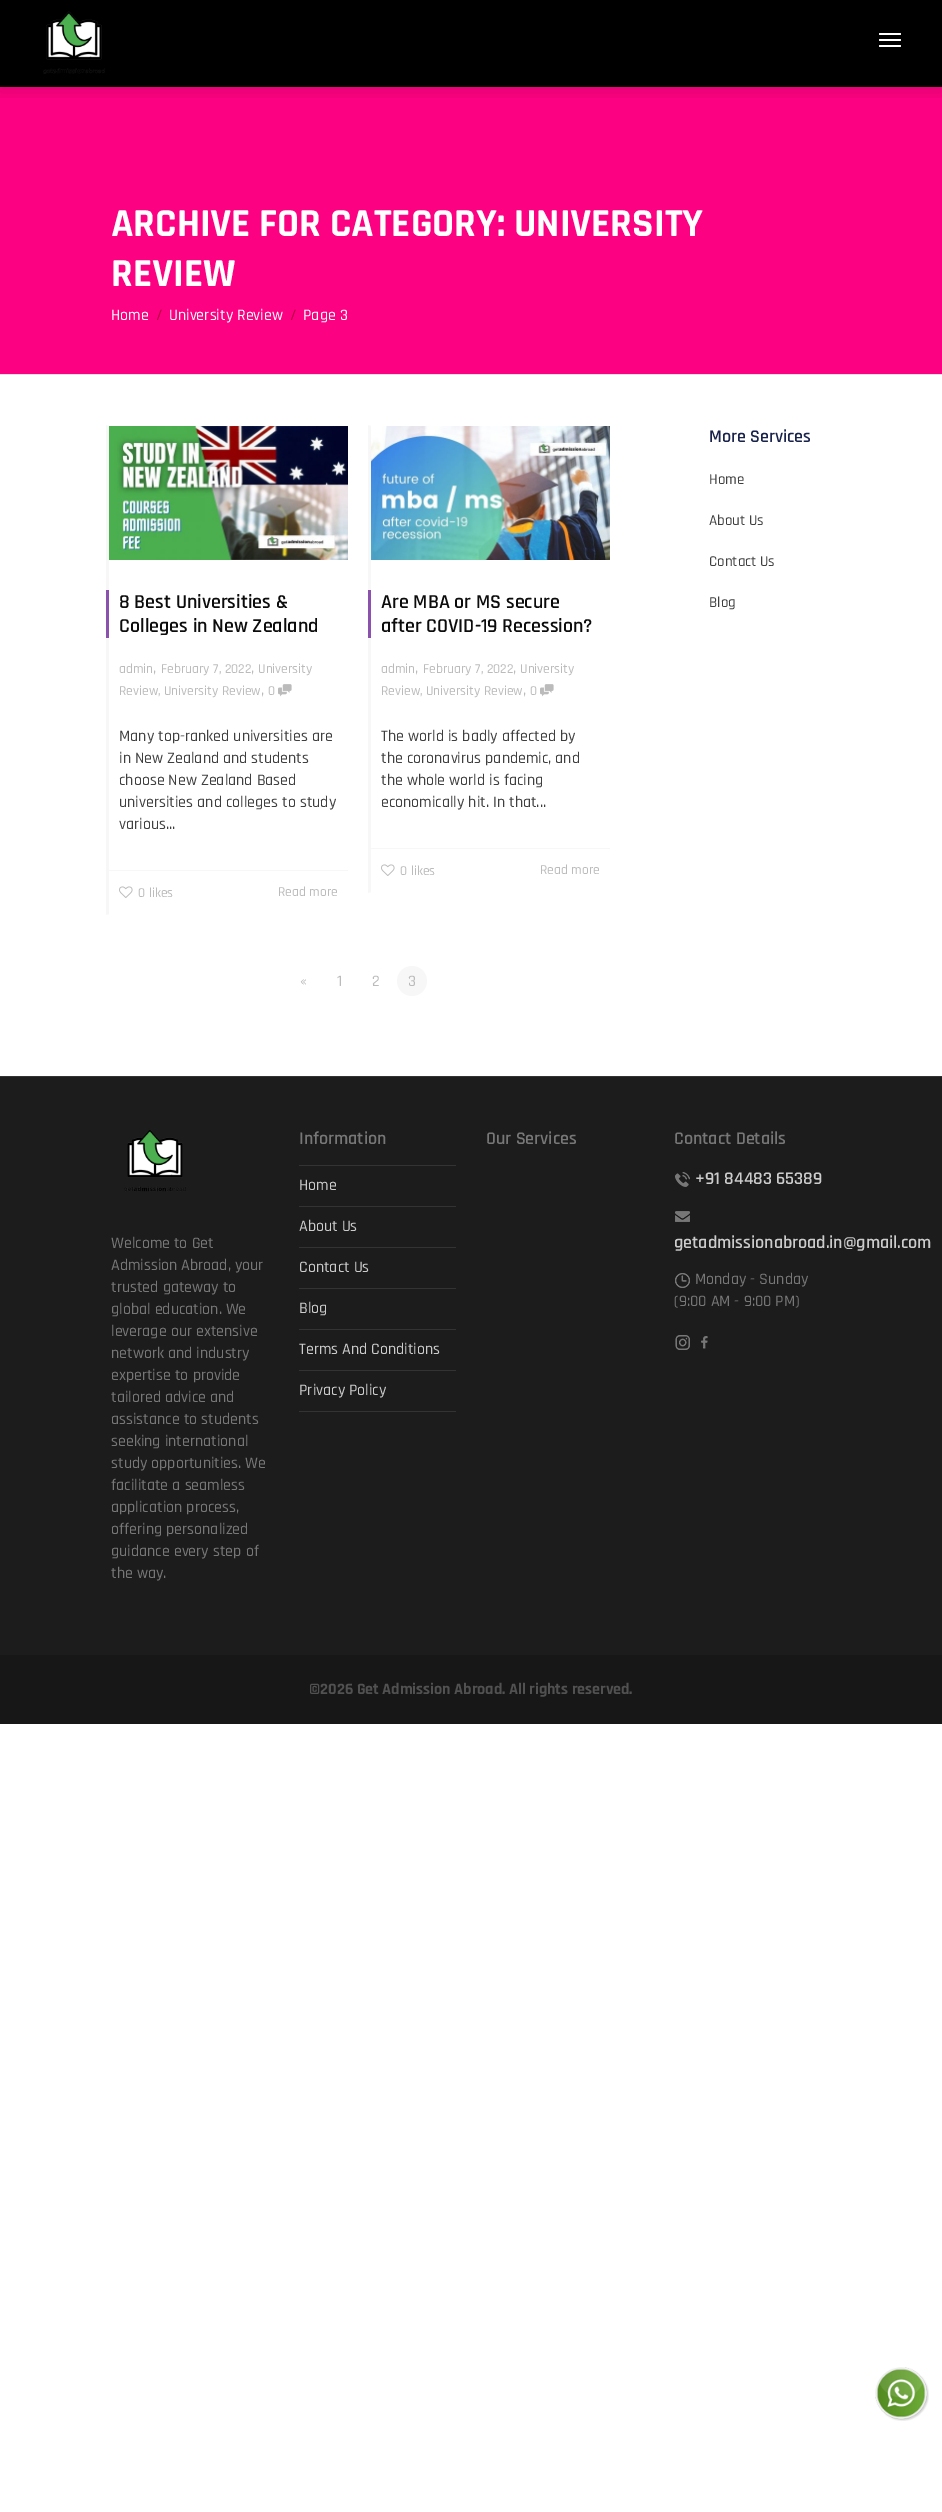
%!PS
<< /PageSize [942 2512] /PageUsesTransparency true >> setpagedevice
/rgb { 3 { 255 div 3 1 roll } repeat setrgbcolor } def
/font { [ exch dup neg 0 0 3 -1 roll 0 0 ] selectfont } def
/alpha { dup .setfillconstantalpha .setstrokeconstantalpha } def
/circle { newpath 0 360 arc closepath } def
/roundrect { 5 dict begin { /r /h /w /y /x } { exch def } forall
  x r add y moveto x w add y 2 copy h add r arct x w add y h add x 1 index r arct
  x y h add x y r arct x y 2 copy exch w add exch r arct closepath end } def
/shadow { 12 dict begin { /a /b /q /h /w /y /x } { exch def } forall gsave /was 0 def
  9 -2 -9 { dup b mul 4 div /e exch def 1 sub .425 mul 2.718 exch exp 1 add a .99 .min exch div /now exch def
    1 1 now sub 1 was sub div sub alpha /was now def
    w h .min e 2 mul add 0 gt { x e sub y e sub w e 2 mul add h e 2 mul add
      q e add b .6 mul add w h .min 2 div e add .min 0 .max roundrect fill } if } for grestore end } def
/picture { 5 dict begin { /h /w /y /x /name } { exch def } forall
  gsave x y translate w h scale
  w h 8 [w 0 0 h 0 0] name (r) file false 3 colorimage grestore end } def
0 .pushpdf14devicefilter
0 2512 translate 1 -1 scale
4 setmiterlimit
255 255 255 rgb
0 0 942 2512 rectfill
0 0 0 rgb
0 0 942 87 rectfill
252 1 129 rgb
0 87 942 287 rectfill
gsave
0 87 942 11 rectclip
0 0 0 rgb
0 4 942 88 0 7.5 0.1 shadow
grestore
(img/1.rgb) 43 11 62 63 picture
255 255 255 rgb
879 33 22 2 1 roundrect fill
879 39 22 2 1 roundrect fill
879 45 22 2 1 roundrect fill
229 229 229 rgb
0 374 942 1 rectfill
247 247 247 rgb
106 915 moveto 106 425 lineto 109 426 lineto 109 914 lineto closepath fill
(img/2.rgb) 109 426 239 134 picture
138 82 173 rgb
106 590 3 48 rectfill
(img/3.rgb) 278 684 14 13 picture
247 247 247 rgb
109 870 239 1 rectfill
(img/4.rgb) 119 886 14 12 picture
368 893 moveto 368 425 lineto 371 426 lineto 371 892 lineto closepath fill
(img/5.rgb) 371 426 239 134 picture
138 82 173 rgb
368 590 3 48 rectfill
(img/3.rgb) 540 684 14 13 picture
247 247 247 rgb
371 848 239 1 rectfill
(img/4.rgb) 381 864 14 12 picture
412 981 15 circle fill
28 28 28 rgb
0 1077 942 578 rectfill
51 51 51 rgb
0 1076 942 1 rectfill
(img/6.rgb) 124 1130 62 62 picture
[
  [299 1165 157 1 51 51 51]
  [299 1206 157 1 51 51 51]
  [299 1247 157 1 51 51 51]
  [299 1288 157 1 51 51 51]
  [299 1329 157 1 51 51 51]
  [299 1370 157 1 51 51 51]
  [299 1411 157 1 51 51 51]
] { aload pop rgb rectfill } forall
(img/7.rgb) 675 1172 15 15 picture
(img/8.rgb) 675 1211 15 11 picture
(img/9.rgb) 675 1273 15 15 picture
(img/10.rgb) 675 1335 15 15 picture
(img/11.rgb) 701 1336 7 13 picture
23 23 23 rgb
0 1655 942 69 rectfill
(img/12.rgb) 875 2367 54 54 picture
/Rajdhani-Bold 40 font
255 255 255 rgb
111 236 moveto (ARCHIVE FOR CATEGORY: UNIVERSITY) show
111 286 moveto (REVIEW) show
/Rajdhani-Medium 16 font
111 320 moveto (Home) show
184 0 64 rgb
156 320 moveto (/) show
255 255 255 rgb
169 320 moveto (University Review) show
184 0 64 rgb
290 320 moveto (/) show
255 255 255 rgb
303 320 moveto (Page 3) show
/Rajdhani-SemiBold 18 font
25 35 76 rgb
709 442 moveto (More Services) show
/Rajdhani-Medium 15 font
63 63 63 rgb
[
  [(Home) 709 484]
  [(About Us) 709 525]
  [(Contact Us) 709 566]
  [(Blog) 709 607]
] { aload pop moveto show } forall
/Rajdhani-SemiBold 20 font
12 12 12 rgb
119 608 moveto (8 Best Universities &) show
119 632 moveto (Colleges in New Zealand) show
/Rajdhani-Medium 13.6 font
187 187 187 rgb
119 673 moveto (admin) show
/Rajdhani-Medium 16 font
153 673 moveto (,) show
/Rajdhani-Medium 13.6 font
161 673 moveto (February 7, 2022) show
/Rajdhani-Medium 16 font
251 673 moveto (,) show
/Rajdhani-Medium 13.6 font
258 673 moveto (University) show
119 695 moveto (Review, University Review) show
/Rajdhani-Medium 16 font
261 695 moveto (,) show
/Rajdhani-Medium 13.6 font
268 695 moveto (0) show
/Rajdhani-Medium 16 font
63 63 63 rgb
[
  [(Many top-ranked universities are) 119 741]
  [(in New Zealand and students) 119 763]
  [(choose New Zealand Based) 119 785]
  [(universities and colleges to study) 119 807]
  [(various...) 119 829]
] { aload pop moveto show } forall
/Rajdhani-Medium 13.6 font
187 187 187 rgb
138 897 moveto (0 likes) show
278 896 moveto (Read more) show
/Rajdhani-SemiBold 20 font
12 12 12 rgb
381 608 moveto (Are MBA or MS secure) show
381 632 moveto (after COVID-19 Recession?) show
/Rajdhani-Medium 13.6 font
187 187 187 rgb
381 673 moveto (admin) show
/Rajdhani-Medium 16 font
415 673 moveto (,) show
/Rajdhani-Medium 13.6 font
423 673 moveto (February 7, 2022) show
/Rajdhani-Medium 16 font
513 673 moveto (,) show
/Rajdhani-Medium 13.6 font
520 673 moveto (University) show
381 695 moveto (Review, University Review) show
/Rajdhani-Medium 16 font
523 695 moveto (,) show
/Rajdhani-Medium 13.6 font
530 695 moveto (0) show
/Rajdhani-Medium 16 font
63 63 63 rgb
[
  [(The world is badly affected by) 381 741]
  [(the coronavirus pandemic, and) 381 763]
  [(the whole world is facing) 381 785]
  [(economically hit. In that...) 381 807]
] { aload pop moveto show } forall
/Rajdhani-Medium 13.6 font
187 187 187 rgb
400 875 moveto (0 likes) show
540 874 moveto (Read more) show
/Rajdhani-Medium 16 font
[
  [(«) 300 986]
  [(1) 337 986]
  [(2) 372 986]
  [(3) 408 986]
] { aload pop moveto show } forall
119 119 119 rgb
[
  [(Welcome to Get) 111 1248]
  [(Admission Abroad, your) 111 1270]
  [(trusted gateway to) 111 1292]
  [(global education. We) 111 1314]
  [(leverage our extensive) 111 1336]
  [(network and industry) 111 1358]
  [(expertise to provide) 111 1380]
  [(tailored advice and) 111 1402]
  [(assistance to students) 111 1424]
  [(seeking international) 111 1446]
  [(study opportunities. We) 111 1468]
  [(facilitate a seamless) 111 1490]
  [(application process,) 111 1512]
  [(offering personalized) 111 1534]
  [(guidance every step of) 111 1556]
  [(the way.) 111 1578]
] { aload pop moveto show } forall
/Rajdhani-SemiBold 18 font
299 1144 moveto (Information) show
/Rajdhani-Medium 16 font
204 204 204 rgb
[
  [(Home) 299 1190]
  [(About Us) 299 1231]
  [(Contact Us) 299 1272]
  [(Blog) 299 1313]
  [(Terms And Conditions) 299 1354]
  [(Privacy Policy) 299 1395]
] { aload pop moveto show } forall
/Rajdhani-SemiBold 18 font
119 119 119 rgb
486 1144 moveto (Our Services) show
674 1144 moveto (Contact Details) show
204 204 204 rgb
695 1184 moveto (+91 84483 65389) show
674 1248 moveto (getadmissionabroad.in@gmail.com) show
/Rajdhani-Medium 16 font
119 119 119 rgb
695 1284 moveto (Monday - Sunday) show
674 1306 moveto (\(9:00 AM - 9:00 PM\)) show
/Rajdhani-Bold 16 font
81 81 81 rgb
309 1694 moveto (©2026 Get Admission Abroad. All rights reserved.) show
.poppdf14devicefilter showpage
